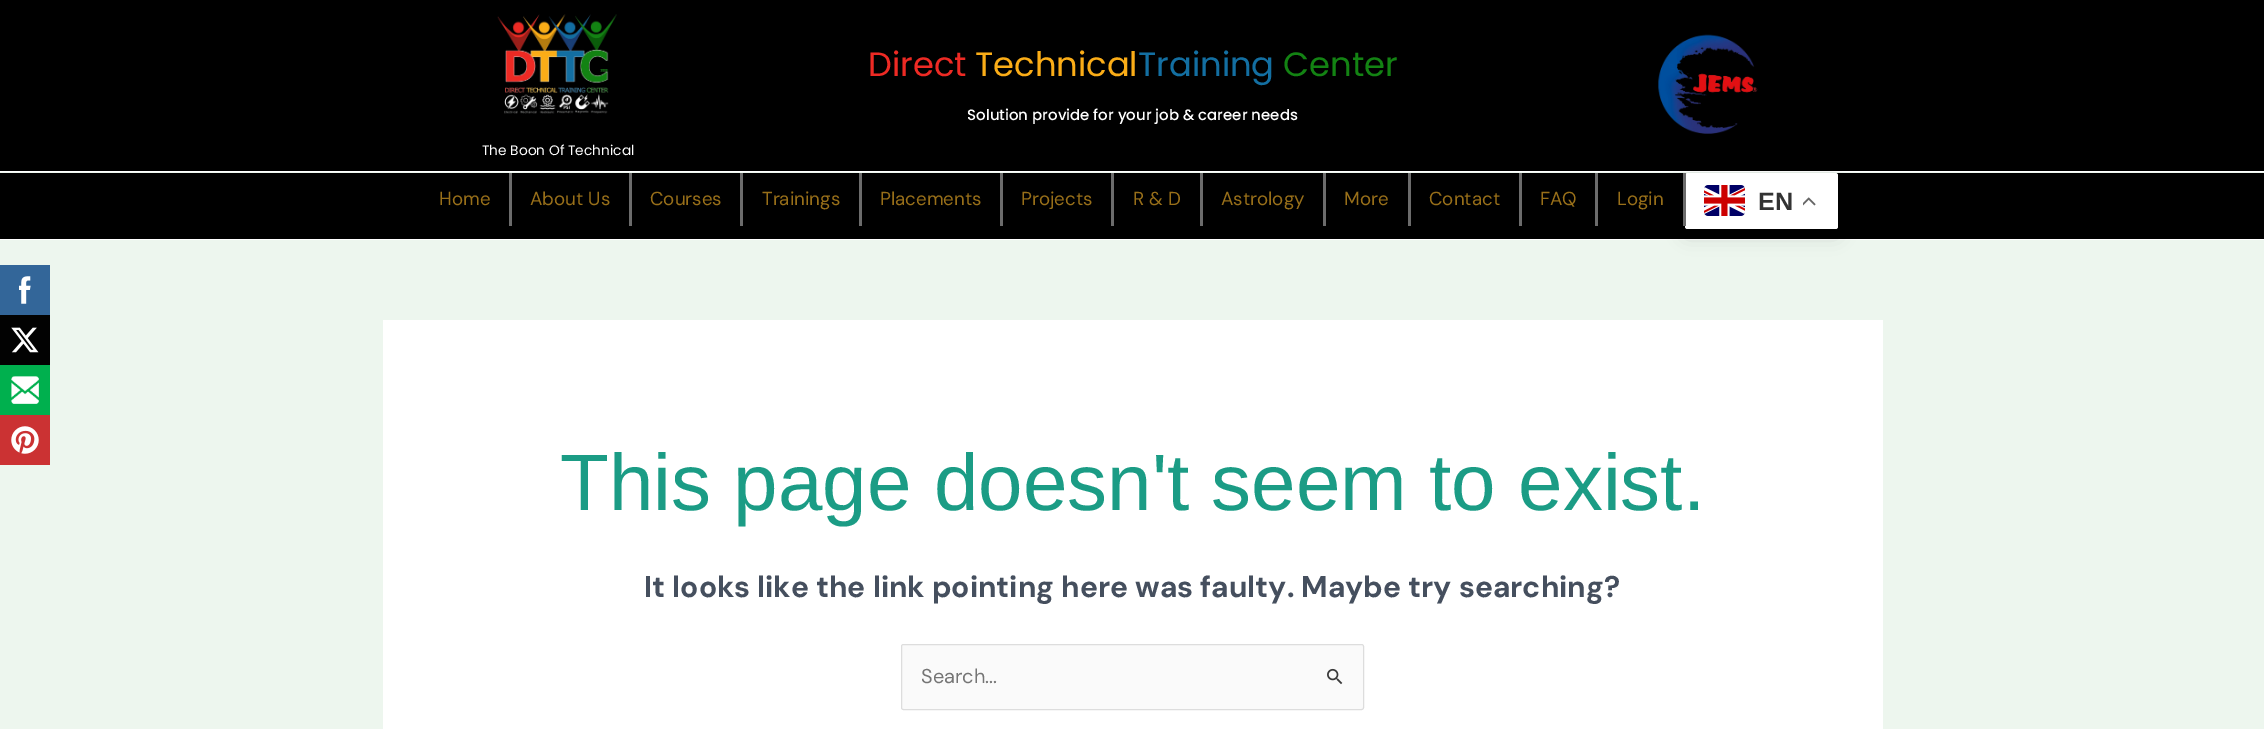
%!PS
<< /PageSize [2264 729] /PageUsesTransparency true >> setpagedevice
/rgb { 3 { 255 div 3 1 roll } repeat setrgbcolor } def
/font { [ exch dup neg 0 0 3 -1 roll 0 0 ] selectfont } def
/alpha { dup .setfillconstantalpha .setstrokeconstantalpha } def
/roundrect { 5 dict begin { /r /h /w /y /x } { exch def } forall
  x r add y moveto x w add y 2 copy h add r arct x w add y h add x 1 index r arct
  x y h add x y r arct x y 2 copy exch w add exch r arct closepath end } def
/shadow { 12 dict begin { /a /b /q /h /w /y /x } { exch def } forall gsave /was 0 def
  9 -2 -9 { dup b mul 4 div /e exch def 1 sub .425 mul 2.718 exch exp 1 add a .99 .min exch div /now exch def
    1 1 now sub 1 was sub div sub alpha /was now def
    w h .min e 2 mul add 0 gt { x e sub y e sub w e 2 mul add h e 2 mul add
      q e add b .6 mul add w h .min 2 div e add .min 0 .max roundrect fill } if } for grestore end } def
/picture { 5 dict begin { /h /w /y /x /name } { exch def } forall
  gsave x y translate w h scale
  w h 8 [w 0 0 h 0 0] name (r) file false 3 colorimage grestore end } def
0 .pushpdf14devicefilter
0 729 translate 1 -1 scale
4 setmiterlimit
237 246 238 rgb
0 0 2264 729 rectfill
51 102 153 rgb
0 265 50 50 rectfill
(img/1.rgb) 19 276 12 28 picture
2 2 2 rgb
0 315 50 50 rectfill
(img/2.rgb) 11 327 28 26 picture
0 176 78 rgb
0 365 50 50 rectfill
(img/3.rgb) 11 376 28 28 picture
203 50 51 rgb
0 415 50 50 rectfill
(img/4.rgb) 11 426 28 28 picture
0 0 0 rgb
0 0 2264 171 rectfill
(img/5.rgb) 1658 34 100 100 picture
(img/6.rgb) 497 14 120 100 picture
[
  [0 173 2264 66 0 0 0]
  [0 171 2264 1 255 255 255]
  [0 239 2264 1 255 255 255]
  [509 173 3 53 108 108 108]
  [629 173 3 53 108 108 108]
  [740 173 3 53 108 108 108]
  [859 173 3 53 108 108 108]
  [1000 173 3 53 108 108 108]
  [1111 173 3 53 108 108 108]
  [1200 173 3 53 108 108 108]
  [1323 173 3 53 108 108 108]
  [1408 173 3 53 108 108 108]
  [1519 173 3 53 108 108 108]
  [1595 173 3 53 108 108 108]
] { aload pop rgb rectfill } forall
0 0 0 rgb
1685 179 153 56 2.5 9.5 0.15 shadow
255 255 255 rgb
1685 173 153 56 2.5 roundrect fill
108 108 108 rgb
1683 173 3 53 rectfill
(img/7.rgb) 1704 185 41 31 picture
(img/8.rgb) 1803 197 13 9 picture
255 255 255 rgb
383 320 1500 409 rectfill
250 250 250 rgb
901.5 644.5 462 65 2 roundrect gsave fill grestore
221 221 221 rgb
stroke
(img/9.rgb) 1327 668 16 17 picture
/Poppins-Regular 33.75 font
238 42 36 rgb
868 76 moveto (Direct) show
251 173 23 rgb
975 76 moveto (Technical) show
19 111 162 rgb
1138 76 moveto (Training) show
19 131 19 rgb
1283 76 moveto (Center) show
/Poppins-Medium 15 font
255 255 255 rgb
967 120 moveto (Solution provide for your job & career needs) show
/Poppins-Regular 13.75 font
482 155 moveto (The Boon Of Technical) show
/DMSans-Regular 18.75 font
152 111 25 rgb
[
  [(Home) 439 205]
  [(About Us) 530 205]
  [(Courses) 650 205]
  [(Trainings) 762 205]
  [(Placements) 880 205]
  [(Projects) 1021 205]
  [(R & D) 1133 205]
  [(Astrology) 1221 205]
  [(More) 1344 205]
  [(Contact) 1429 205]
  [(FAQ) 1540 205]
  [(Login) 1617 205]
] { aload pop moveto show } forall
/LiberationSans-Bold 25 font
51 51 51 rgb
1758 210 moveto (EN) show
/LiberationSans-Regular 80 font
27 156 133 rgb
560 510 moveto (This page doesn't seem to exist.) show
/DMSans-Bold 30 font
69 79 94 rgb
644 597 moveto (It looks like the link pointing here was faulty. Maybe try searching?) show
/DMSans-Regular 20 font
117 117 117 rgb
921 683 moveto (Search...) show
.poppdf14devicefilter showpage
